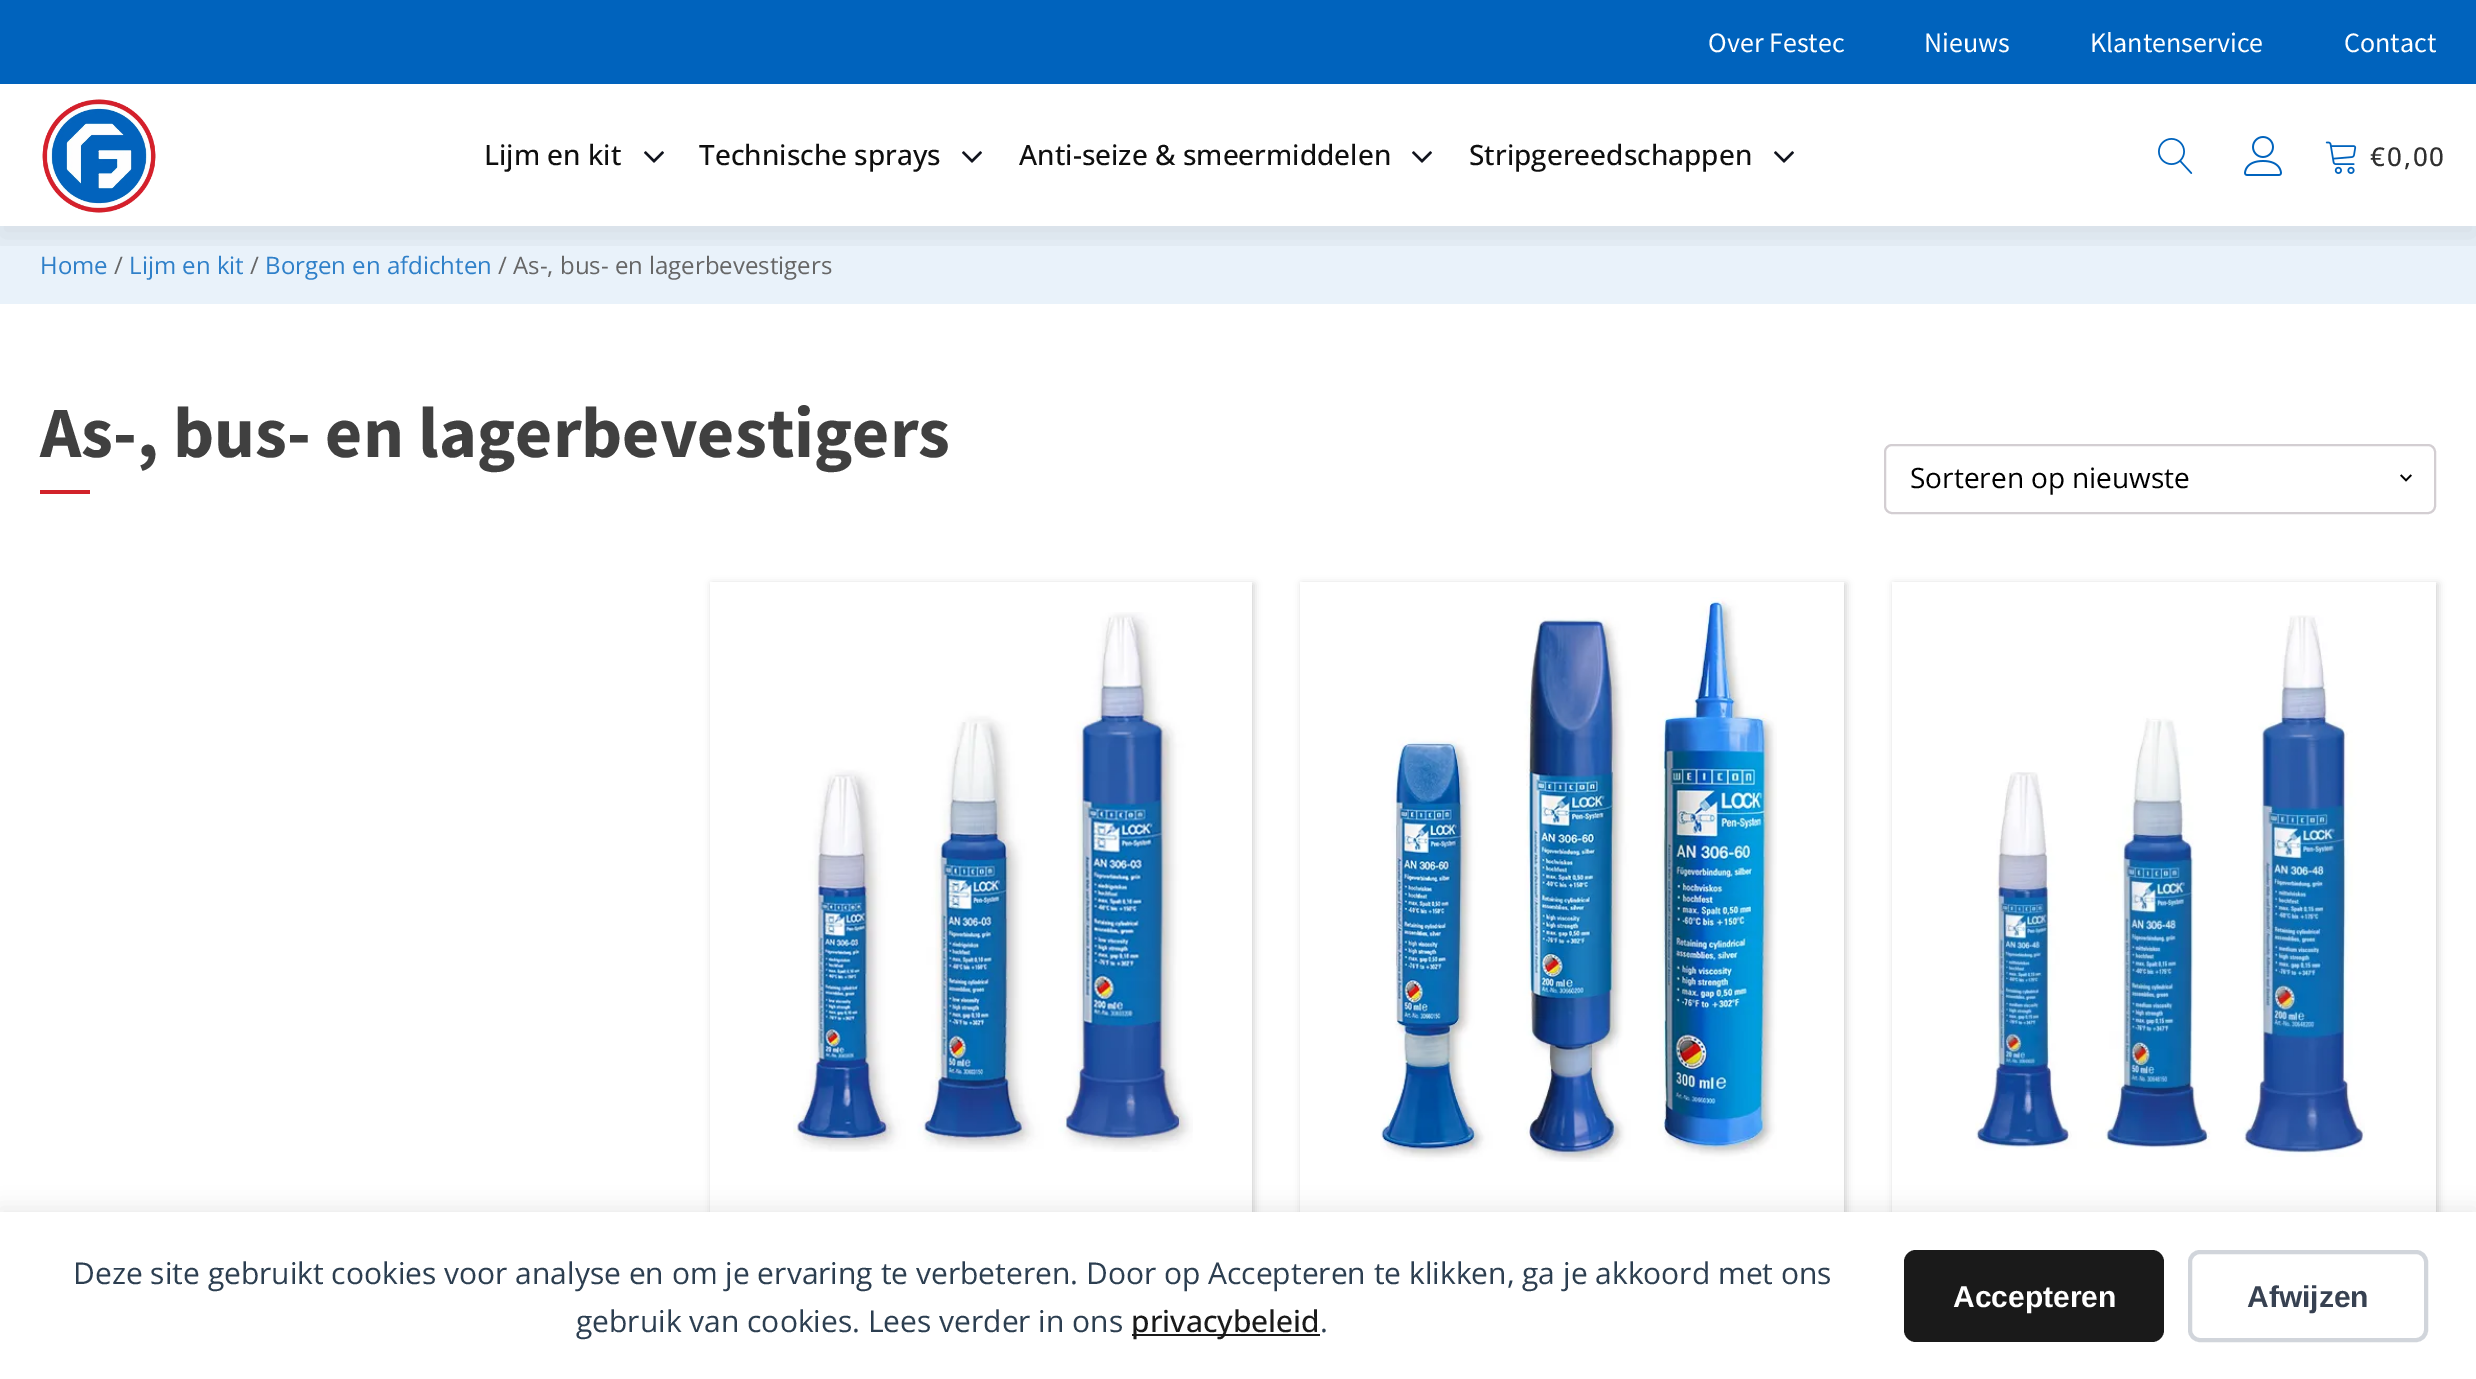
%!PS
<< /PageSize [2476 1379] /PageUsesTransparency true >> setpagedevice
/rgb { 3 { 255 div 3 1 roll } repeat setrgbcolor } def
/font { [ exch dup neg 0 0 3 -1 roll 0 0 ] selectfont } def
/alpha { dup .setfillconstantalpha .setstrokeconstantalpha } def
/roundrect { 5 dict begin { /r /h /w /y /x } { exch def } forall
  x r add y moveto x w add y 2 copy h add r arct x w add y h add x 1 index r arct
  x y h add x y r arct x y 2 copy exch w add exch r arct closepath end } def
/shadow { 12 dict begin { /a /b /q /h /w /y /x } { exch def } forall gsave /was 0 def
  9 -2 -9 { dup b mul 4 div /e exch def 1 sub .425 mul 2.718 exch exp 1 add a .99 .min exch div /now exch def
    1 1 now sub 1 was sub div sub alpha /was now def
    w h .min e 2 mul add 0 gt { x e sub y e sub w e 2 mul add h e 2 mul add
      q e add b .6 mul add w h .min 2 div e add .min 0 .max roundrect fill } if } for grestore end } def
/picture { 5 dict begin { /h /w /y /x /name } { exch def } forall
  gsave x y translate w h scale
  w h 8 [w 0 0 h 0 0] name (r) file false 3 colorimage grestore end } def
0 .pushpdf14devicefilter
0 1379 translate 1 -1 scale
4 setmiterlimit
255 255 255 rgb
0 0 2476 1379 rectfill
233 242 250 rgb
0 226 2476 78 rectfill
gsave
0 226 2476 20 rectclip
0 0 0 rgb
0 10 2476 226 0 15 0.08 shadow
grestore
0 99 189 rgb
0 0 2476 84 rectfill
(img/1.rgb) 42 99 114 114 picture
(img/2.rgb) 644 151 20 12 picture
(img/2.rgb) 962 151 20 12 picture
(img/2.rgb) 1412 151 20 12 picture
(img/2.rgb) 1774 151 20 12 picture
(img/3.rgb) 2158 138 35 36 picture
(img/4.rgb) 2244 136 38 40 picture
(img/5.rgb) 2325 141 32 33 picture
210 34 42 rgb
40 490 50 4 rectfill
(img/6.rgb) 2400 474 12 8 picture
211 206 210 rgb
2 setlinewidth
1885 445 550 68 7 roundrect stroke
gsave
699 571 moveto 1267 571 lineto 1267 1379 lineto 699 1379 lineto closepath 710 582 moveto 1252 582 lineto 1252 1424 lineto 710 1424 lineto closepath eoclip newpath
209 209 209 rgb
712 584 542 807 0 4 1 shadow
grestore
(img/7.rgb) 793 612 400 540 picture
gsave
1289 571 moveto 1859 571 lineto 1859 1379 lineto 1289 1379 lineto closepath 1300 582 moveto 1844 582 lineto 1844 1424 lineto 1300 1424 lineto closepath eoclip newpath
209 209 209 rgb
1302 584 544 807 0 4 1 shadow
grestore
(img/8.rgb) 1380 597 397 565 picture
gsave
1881 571 moveto 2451 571 lineto 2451 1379 lineto 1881 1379 lineto closepath 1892 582 moveto 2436 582 lineto 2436 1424 lineto 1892 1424 lineto closepath eoclip newpath
209 209 209 rgb
1894 584 544 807 0 4 1 shadow
grestore
(img/9.rgb) 1975 615 390 542 picture
0 0 0 rgb
0 1208 2476 168 0 10 0.08 shadow
255 255 255 rgb
0 1212 2476 167 rectfill
26 26 26 rgb
1132 1334 188 2 rectfill
1904 1250 260 92 12 roundrect fill
209 213 219 rgb
4 setlinewidth
2190 1252 236 88 10 roundrect stroke
/SourceSansPro-Regular 28 font
255 255 255 rgb
[
  [(Over Festec) 1708 52]
  [(Nieuws) 1924 52]
  [(Klantenservice) 2090 52]
  [(Contact) 2344 52]
] { aload pop moveto show } forall
/OpenSans-Medium 28 font
15 15 15 rgb
[
  [(Lijm en kit) 484 165]
  [(Technische sprays) 699 165]
  [(Anti-seize & smeermiddelen) 1019 165]
  [(Stripgereedschappen) 1469 165]
] { aload pop moveto show } forall
/OpenSans-Medium 26 font
48 48 48 rgb
2370 166 moveto 2 0 (€0,00) ashow
/OpenSans-Regular 24 font
47 128 201 rgb
40 274 moveto (Home) show
102 102 102 rgb
114 274 moveto (/) show
47 128 201 rgb
129 274 moveto (Lijm en kit) show
102 102 102 rgb
250 274 moveto (/) show
47 128 201 rgb
265 274 moveto (Borgen en afdichten) show
102 102 102 rgb
498 274 moveto (/ As-, bus- en lagerbevestigers) show
/SourceSansPro-Bold 72 font
64 64 64 rgb
40 457 moveto (As-, bus- en lagerbevestigers) show
/OpenSans-Regular 28 font
0 0 0 rgb
1910 488 moveto (Sorteren op nieuwste) show
/OpenSans-Regular 30 font
44 62 80 rgb
73 1284 moveto (Deze site gebruikt cookies voor analyse en om je ervaring te verbeteren. Door op Accepteren te klikken, ga je akkoord met ons) show
576 1332 moveto (gebruik van cookies. Lees verder in ons) show
/OpenSans-Medium 30 font
26 26 26 rgb
1131 1332 moveto (privacybeleid) show
/OpenSans-Regular 30 font
44 62 80 rgb
1320 1332 moveto (.) show
/LiberationSans-Bold 30 font
255 255 255 rgb
1953 1307 moveto (Accepteren) show
55 65 81 rgb
2247 1307 moveto (Afwijzen) show
.poppdf14devicefilter showpage
